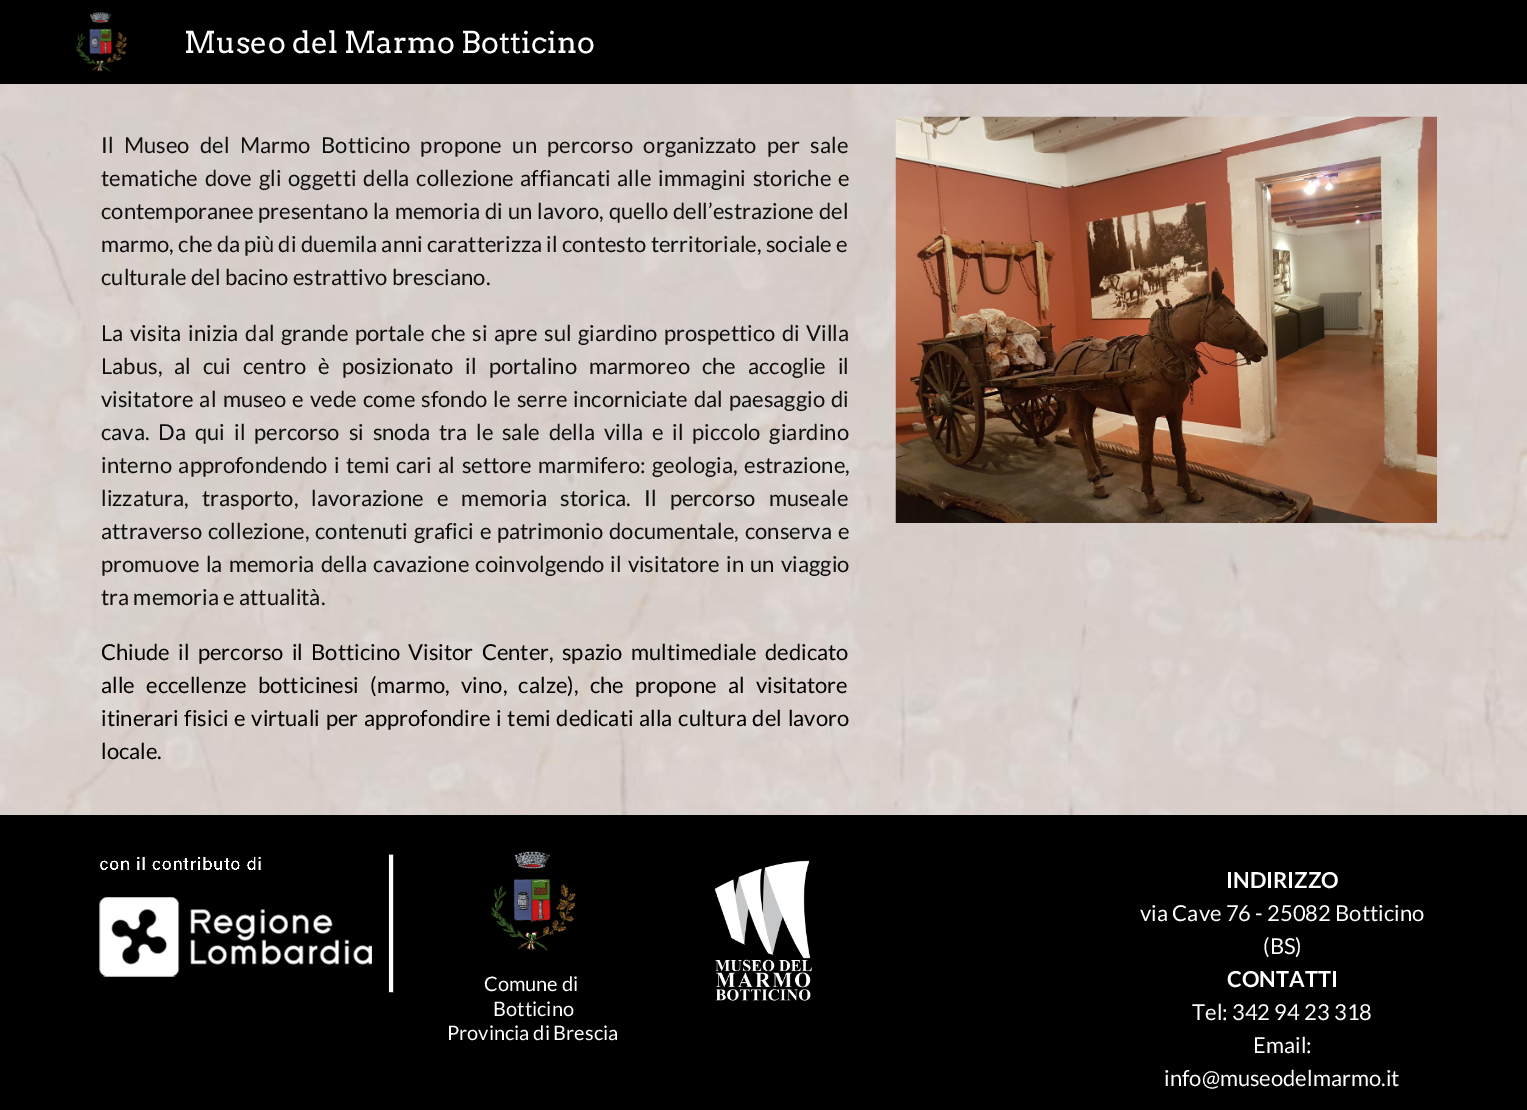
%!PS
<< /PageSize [1527 1110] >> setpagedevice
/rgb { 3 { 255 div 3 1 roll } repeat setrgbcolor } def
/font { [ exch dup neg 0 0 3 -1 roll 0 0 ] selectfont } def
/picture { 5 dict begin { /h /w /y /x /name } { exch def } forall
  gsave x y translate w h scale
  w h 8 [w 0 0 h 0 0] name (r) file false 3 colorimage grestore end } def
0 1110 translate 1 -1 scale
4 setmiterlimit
255 255 255 rgb
0 0 1527 1110 rectfill
0 0 0 rgb
0 0 1527 84 rectfill
(img/1.rgb) 76 12 51 60 picture
(img/2.rgb) 0 84 1527 731 picture
(img/3.rgb) 895 116 542 407 picture
0 815 1527 295 rectfill
(img/4.rgb) 99 854 295 139 picture
(img/5.rgb) 491 851 85 100 picture
(img/6.rgb) 714 860 98 141 picture
/Arvo-Regular 30 font
255 255 255 rgb
184 53 moveto (Museo del Marmo Botticino) show
/Lato-Regular 22 font
15 15 15 rgb
101 153 moveto 6.25 0 32 (Il Museo del Marmo Botticino propone un percorso organizzato per sale) widthshow
101 186 moveto 2.6 0 32 (tematiche dove gli oggetti della collezione affiancati alle immagini storiche e) widthshow
101 219 moveto 0.75 0 32 (contemporanee presentano la memoria di un lavoro, quello dell’estrazione del) widthshow
101 252 moveto (marmo, che da più di duemila anni caratterizza il contesto territoriale, sociale e) show
101 285 moveto (culturale del bacino estrattivo bresciano.) show
101 341 moveto 2.4 0 32 (La visita inizia dal grande portale che si apre sul giardino prospettico di Villa) widthshow
101 374 moveto 7.75 0 32 (Labus, al cui centro è posizionato il portalino marmoreo che accoglie il) widthshow
101 407 moveto 2 0 32 (visitatore al museo e vede come sfondo le serre incorniciate dal paesaggio di) widthshow
101 440 moveto 4.6 0 32 (cava. Da qui il percorso si snoda tra le sale della villa e il piccolo giardino) widthshow
101 473 moveto 2.25 0 32 (interno approfondendo i temi cari al settore marmifero: geologia, estrazione,) widthshow
101 506 moveto 9 0 32 (lizzatura, trasporto, lavorazione e memoria storica. Il percorso museale) widthshow
101 539 moveto 1.5 0 32 (attraverso collezione, contenuti grafici e patrimonio documentale, conserva e) widthshow
101 572 moveto 2 0 32 (promuove la memoria) widthshow
321 572 moveto 2 0 32 (della cavazione coinvolgendo) widthshow
610 572 moveto 2 0 32 (il visitatore) widthshow
[
  [(in) 726 572]
  [(un) 750 572]
  [(viaggio) 781 572]
  [(tra memoria e attualità.) 101 605]
] { aload pop moveto show } forall
0 0 0 rgb
101 660 moveto 4 0 32 (Chiude il percorso il Botticino Visitor Center, spazio multimediale dedicato) widthshow
101 693 moveto 7 0 32 (alle eccellenze botticinesi \(marmo, vino, calze\), che propone al visitatore) widthshow
101 726 moveto 1.4 0 32 (itinerari fisici e virtuali per approfondire i temi dedicati alla cultura del lavoro) widthshow
101 759 moveto (locale.) show
/Lato-Regular 20 font
255 255 255 rgb
[
  [(Comune di) 484 991]
  [(Botticino) 493 1016]
  [(Provincia di Brescia) 447 1040]
] { aload pop moveto show } forall
/Lato-Bold 22 font
1226 888 moveto (INDIRIZZO) show
/Lato-Regular 22 font
1140 921 moveto (via Cave 76 - 25082 Botticino) show
1263 954 moveto (\(BS\)) show
/Lato-Bold 22 font
1227 987 moveto (CONTATTI) show
/Lato-Regular 22 font
[
  [(Tel: 342 94 23 318) 1192 1020]
  [(Email:) 1253 1053]
  [(info@museodelmarmo.it) 1164 1086]
] { aload pop moveto show } forall
showpage
